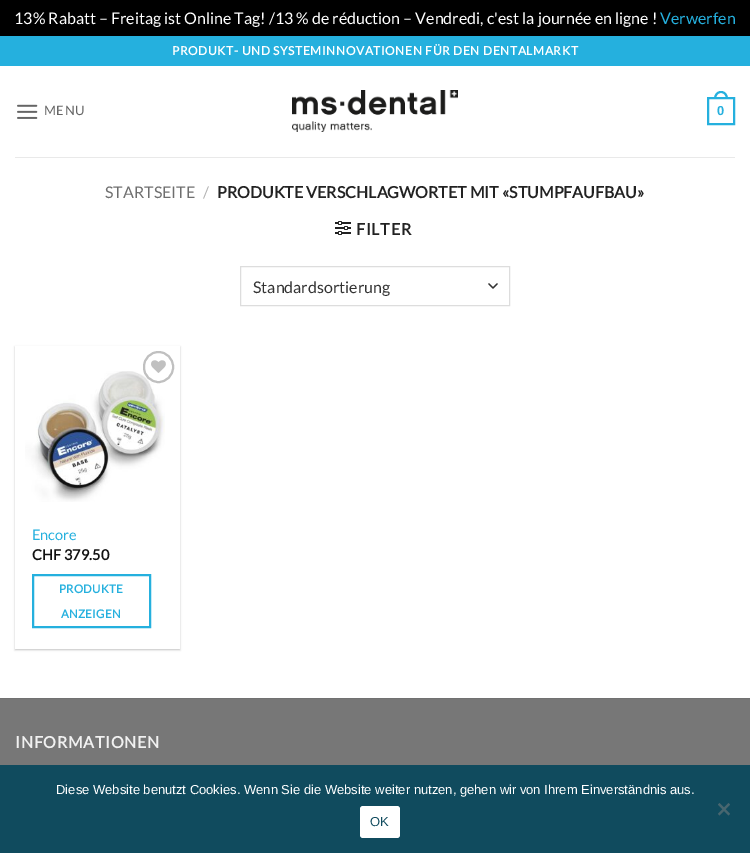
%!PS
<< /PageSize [750 853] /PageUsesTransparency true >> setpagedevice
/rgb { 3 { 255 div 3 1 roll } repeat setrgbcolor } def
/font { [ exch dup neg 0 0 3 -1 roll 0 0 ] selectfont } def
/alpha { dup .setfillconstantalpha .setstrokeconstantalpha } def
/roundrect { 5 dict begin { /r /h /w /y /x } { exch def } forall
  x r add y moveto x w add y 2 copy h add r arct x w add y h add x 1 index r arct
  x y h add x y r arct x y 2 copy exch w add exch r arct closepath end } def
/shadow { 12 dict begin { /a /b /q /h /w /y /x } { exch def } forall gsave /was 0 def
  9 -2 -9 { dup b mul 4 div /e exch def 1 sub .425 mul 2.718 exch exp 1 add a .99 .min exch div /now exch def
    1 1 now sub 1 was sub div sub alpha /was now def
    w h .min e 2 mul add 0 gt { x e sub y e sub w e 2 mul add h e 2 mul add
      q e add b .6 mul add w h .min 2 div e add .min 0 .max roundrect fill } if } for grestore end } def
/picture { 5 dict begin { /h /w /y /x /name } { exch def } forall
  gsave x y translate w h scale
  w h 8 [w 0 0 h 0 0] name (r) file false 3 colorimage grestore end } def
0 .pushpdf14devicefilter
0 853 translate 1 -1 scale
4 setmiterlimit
0 0 0 rgb
0 0 750 853 rectfill
255 255 255 rgb
0 66 750 632 rectfill
37 176 222 rgb
0 36 750 30 rectfill
(img/1.rgb) 17 104 21 15 picture
(img/2.rgb) 292 90 166 42 picture
2 setlinewidth
708 98 26 26 rectstroke
721 91 moveto 725.5 91 728 95 728 99 curveto 714 99 lineto 714 95 716.5 91 721 91 curveto closepath 721 93 moveto 724.5 93 726 96 726 99 curveto 716 99 lineto 716 96 717.5 93 721 93 curveto closepath eofill
233 233 233 rgb
15 157 720 1 rectfill
(img/3.rgb) 335 221 16 14 picture
51 51 51 rgb
1.3 setlinewidth
1 setlinecap
1 setlinejoin
489 284 moveto 493 288 lineto 497 284 lineto stroke
221 221 221 rgb
1 setlinewidth
0 setlinecap
0 setlinejoin
240.5 266.5 269 39 rectstroke
gsave
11 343 moveto 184 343 lineto 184 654 lineto 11 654 lineto closepath 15 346 moveto 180 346 lineto 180 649 lineto 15 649 lineto closepath eoclip newpath
0 0 0 rgb
15 347 165 303 0 1 0.24 shadow
grestore
(img/5.rgb) 25 371 140 131 picture
192 192 192 rgb
2 setlinewidth
144 352 29 30 14.5 roundrect stroke
(img/4.rgb) 151 360 15 13 picture
37 176 222 rgb
33 575 117 52 rectstroke
[
  [0 699 750 66 119 119 119]
  [0 698 750 1 113 113 113]
  [0 765 750 88 16 75 94]
] { aload pop rgb rectfill } forall
72 102 111 rgb
728.5 803 moveto 730 804.5 lineto 719.5 815.5 lineto 718 814 lineto closepath fill
718 804.5 moveto 719.5 803 lineto 730 814 lineto 728.5 815.5 lineto closepath fill
255 255 255 rgb
360 806 40 32 3 roundrect fill
/Lato-Regular 16 font
14 24 moveto (13% Rabatt – Freitag ist Online Tag! /13 % de réduction – Vendredi, c'est la journée en ligne !) show
37 176 222 rgb
660 24 moveto (Verwerfen) show
/Lato-Bold 12 font
255 255 255 rgb
172 55 moveto 0.6 0 (PRODUKT- UND SYSTEMINNOVATIONEN FÜR DEN DENTALMARKT) ashow
/Lato-Regular 13 font
101 101 101 rgb
44 115 moveto 0.5 0 (MENU) ashow
/LiberationSans-Bold 13 font
37 176 222 rgb
717 115 moveto (0) show
/Lato-Regular 16 font
110 110 110 rgb
105 198 moveto (STARTSEITE) show
178 178 178 rgb
203 198 moveto (/) show
/Lato-Bold 16 font
34 34 34 rgb
217 198 moveto (PRODUKTE VERSCHLAGWORTET MIT «STUMPFAUFBAU») show
356 235 moveto 0.75 0 (FILTER) ashow
/Lato-Regular 16 font
51 51 51 rgb
253 293 moveto (Standardsortierung) show
/Lato-Regular 14.5 font
37 176 222 rgb
32 540 moveto (Encore) show
/Lato-Bold 14.5 font
17 17 17 rgb
32 560 moveto (CHF 379.50) show
/Lato-Bold 11.5 font
37 176 222 rgb
59 593 moveto 0.25 0 (PRODUKTE) ashow
61 618 moveto 0.25 0 (ANZEIGEN) ashow
/Lato-Bold 16 font
241 241 241 rgb
15 748 moveto 0.75 0 (INFORMATIONEN) ashow
/LiberationSans-Regular 13 font
255 255 255 rgb
56 794 moveto (Diese Website benutzt Cookies. Wenn Sie die Website weiter nutzen, gehen wir von Ihrem Einverständnis aus.) show
16 75 94 rgb
370 826 moveto (OK) show
.poppdf14devicefilter showpage
